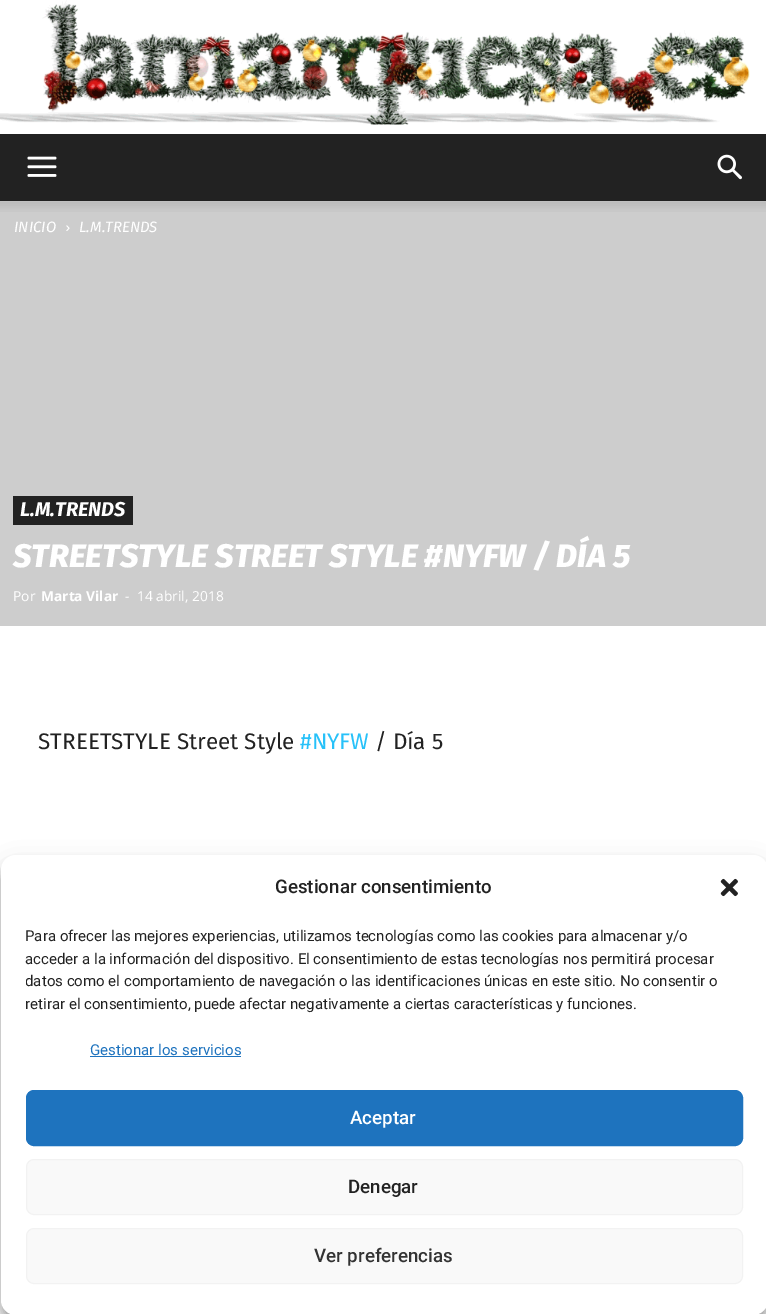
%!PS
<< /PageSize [766 1314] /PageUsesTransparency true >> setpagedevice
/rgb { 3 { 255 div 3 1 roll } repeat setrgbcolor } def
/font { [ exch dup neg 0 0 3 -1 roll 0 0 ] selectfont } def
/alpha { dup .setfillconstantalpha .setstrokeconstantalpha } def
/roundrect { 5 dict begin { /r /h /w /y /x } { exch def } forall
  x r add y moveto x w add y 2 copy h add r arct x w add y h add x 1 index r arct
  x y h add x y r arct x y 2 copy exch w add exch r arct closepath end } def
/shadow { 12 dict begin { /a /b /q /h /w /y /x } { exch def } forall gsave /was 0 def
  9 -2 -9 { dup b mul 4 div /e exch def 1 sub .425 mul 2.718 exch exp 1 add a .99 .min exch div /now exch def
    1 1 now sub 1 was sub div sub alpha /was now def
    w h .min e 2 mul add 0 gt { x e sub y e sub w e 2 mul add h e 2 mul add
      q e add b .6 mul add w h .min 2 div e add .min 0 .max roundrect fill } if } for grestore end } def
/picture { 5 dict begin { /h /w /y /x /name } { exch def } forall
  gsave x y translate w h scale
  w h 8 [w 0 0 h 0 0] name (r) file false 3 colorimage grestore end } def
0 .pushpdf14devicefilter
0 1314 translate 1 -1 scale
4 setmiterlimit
255 255 255 rgb
0 0 766 1314 rectfill
(img/1.rgb) 0 0 750 125 picture
34 34 34 rgb
0 134 766 67 rectfill
(img/2.rgb) 27 156 30 21 picture
(img/3.rgb) 717 154 25 26 picture
205 205 205 rgb
0 201 766 425 rectfill
(img/4.rgb) 0 201 766 11 picture
(img/5.rgb) 66 225 4 6 picture
34 34 34 rgb
13 496 120 29 rectfill
gsave
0 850 moveto 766 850 lineto 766 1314 lineto 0 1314 lineto closepath 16 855 moveto 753 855 lineto 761.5 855 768 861.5 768 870 curveto 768 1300 lineto 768 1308.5 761.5 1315 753 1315 curveto 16 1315 lineto 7.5 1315 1 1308.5 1 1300 curveto 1 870 lineto 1 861.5 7.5 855 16 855 curveto closepath eoclip newpath
0 0 0 rgb
1 863 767 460 15 4 0.23 shadow
grestore
gsave
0 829 moveto 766 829 lineto 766 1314 lineto 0 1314 lineto closepath 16 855 moveto 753 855 lineto 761.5 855 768 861.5 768 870 curveto 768 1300 lineto 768 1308.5 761.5 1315 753 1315 curveto 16 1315 lineto 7.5 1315 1 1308.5 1 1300 curveto 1 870 lineto 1 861.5 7.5 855 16 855 curveto closepath eoclip newpath
0 0 0 rgb
1 868 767 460 15 12.5 0.19 shadow
grestore
255 255 255 rgb
1 855 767 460 15 roundrect fill
(img/6.rgb) 720 878 18 19 picture
30 115 190 rgb
90 1056 151 1 rectfill
26.5 1090.5 716 55 7.5 roundrect gsave fill grestore
stroke
249 249 249 rgb
26.5 1159.5 716 55 7.5 roundrect gsave fill grestore
242 242 242 rgb
stroke
249 249 249 rgb
26.5 1228.5 716 55 7.5 roundrect gsave fill grestore
242 242 242 rgb
stroke
/FiraSans-Italic 15 font
255 255 255 rgb
14 232 moveto (INICIO) show
79 232 moveto (L.M.TRENDS) show
/FiraSans-BoldItalic 20 font
20 516 moveto (L.M.TRENDS) show
/FiraSans-ExtraBoldItalic 32.5 font
13 567 moveto (STREETSTYLE STREET STYLE #NYFW / DÍA 5) show
/OpenSans-Regular 13.75 font
13 601 moveto (Por) show
/OpenSans-Bold 13.75 font
41 601 moveto (Marta Vilar) show
/OpenSans-Regular 13.75 font
125 601 moveto (-) show
137 601 moveto (14 abril, 2018) show
/FiraSans-Regular 22.5 font
34 34 34 rgb
38 749 moveto (STREETSTYLE Street Style) show
39 193 249 rgb
300 749 moveto (#NYFW) show
34 34 34 rgb
375 749 moveto (/ Día 5) show
/Roboto-Medium 18.75 font
275 893 moveto (Gestionar consentimiento) show
/Roboto-Regular 15 font
25 941 moveto (Para ofrecer las mejores experiencias, utilizamos tecnologías como las cookies para almacenar y/o) show
25 964 moveto (acceder a la información del dispositivo. El consentimiento de estas tecnologías nos permitirá procesar) show
gsave
26 925 717 96 rectclip
25 986 moveto (datos como el comportamiento de navegación o las identificaciones únicas en este sitio. No consentir o) show
grestore
25 1009 moveto (retirar el consentimiento, puede afectar negativamente a ciertas características y funciones.) show
30 115 190 rgb
90 1055 moveto (Gestionar los servicios) show
/Roboto-Medium 18.75 font
255 255 255 rgb
350 1124 moveto (Aceptar) show
34 34 34 rgb
348 1193 moveto (Denegar) show
51 51 51 rgb
314 1262 moveto (Ver preferencias) show
.poppdf14devicefilter showpage
